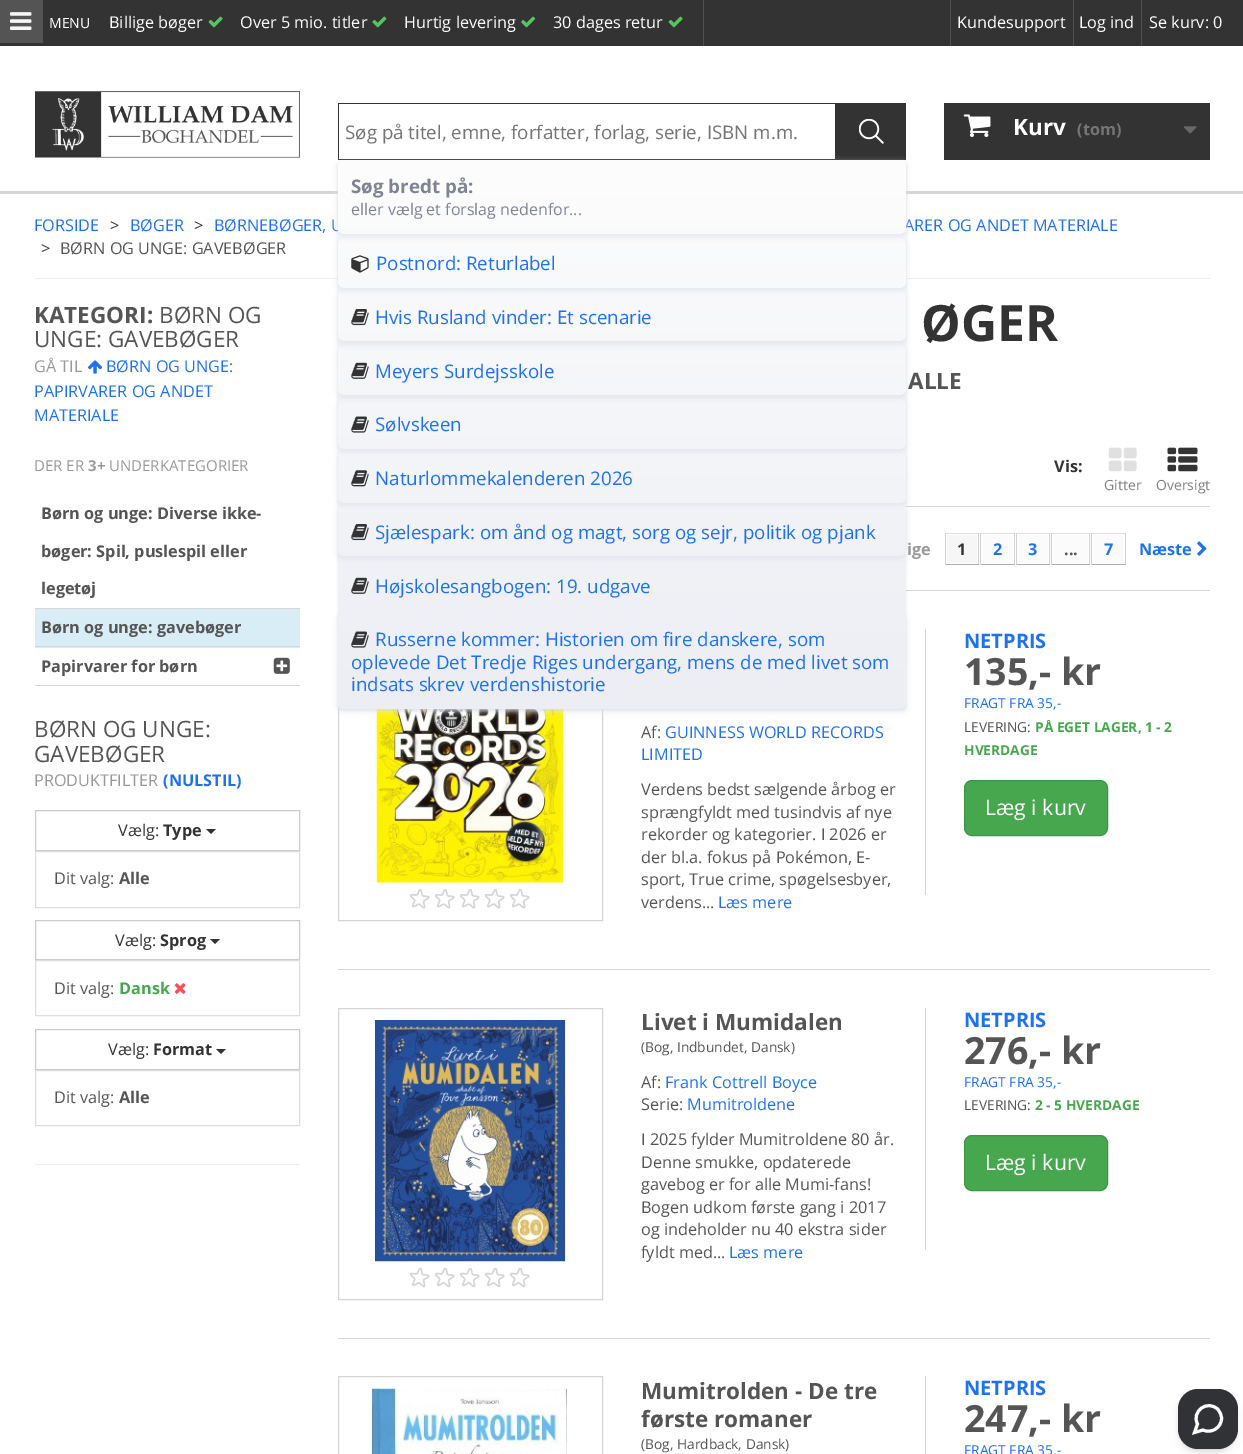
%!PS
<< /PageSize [1243 1454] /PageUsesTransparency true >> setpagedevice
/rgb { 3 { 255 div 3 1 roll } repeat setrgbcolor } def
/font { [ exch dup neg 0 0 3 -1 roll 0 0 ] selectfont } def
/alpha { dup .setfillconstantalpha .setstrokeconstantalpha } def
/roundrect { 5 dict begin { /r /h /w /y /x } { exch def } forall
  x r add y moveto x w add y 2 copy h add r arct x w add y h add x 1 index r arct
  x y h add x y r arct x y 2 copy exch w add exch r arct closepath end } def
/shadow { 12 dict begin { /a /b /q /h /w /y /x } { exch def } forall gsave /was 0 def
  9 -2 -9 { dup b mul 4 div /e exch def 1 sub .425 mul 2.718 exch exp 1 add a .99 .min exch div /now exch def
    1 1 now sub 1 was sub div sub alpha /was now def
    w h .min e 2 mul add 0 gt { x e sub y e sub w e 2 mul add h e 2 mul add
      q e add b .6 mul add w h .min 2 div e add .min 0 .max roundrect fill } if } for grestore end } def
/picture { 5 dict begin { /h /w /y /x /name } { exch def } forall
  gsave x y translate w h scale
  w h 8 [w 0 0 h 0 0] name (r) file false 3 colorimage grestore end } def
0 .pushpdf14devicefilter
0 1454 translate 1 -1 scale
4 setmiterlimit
255 255 255 rgb
0 0 1243 1454 rectfill
51 51 51 rgb
0 0 1243 46 rectfill
81 81 81 rgb
703 0 1 46 rectfill
(img/1.rgb) 208 16 15 12 picture
(img/2.rgb) 372 16 15 12 picture
(img/3.rgb) 521 16 15 12 picture
(img/1.rgb) 668 16 15 12 picture
[
  [950 0 1 46 81 81 81]
  [1073 0 1 46 81 81 81]
  [1141 0 1 46 81 81 81]
  [0 191 1243 3 214 212 212]
  [0 0 43 43 85 84 84]
] { aload pop rgb rectfill } forall
(img/4.rgb) 10 12 22 18 picture
(img/5.rgb) 35 91 265 67 picture
[
  [338 103 497 1 51 51 51]
  [338 159 497 1 51 51 51]
  [338 103 1 57 51 51 51]
  [835 103 71 57 51 51 51]
] { aload pop rgb rectfill } forall
(img/6.rgb) 859 119 25 25 picture
[
  [35 278 1175 1 238 238 238]
  [906 506 304 1 214 212 212]
  [906 590 304 1 214 212 212]
] { aload pop rgb rectfill } forall
338.5 629.5 264 291 rectstroke
(img/23.rgb) 366 709 199 174 picture
0 0 0 rgb
338 161 568 549 4 1 0.1 shadow
51 51 51 rgb
944 103 266 57 rectfill
(img/15.rgb) 963 114 28 23 picture
(img/16.rgb) 1183 126 14 8 picture
(img/17.rgb) 88 360 15 14 picture
[
  [35 608 265 1 214 212 212]
  [35 609 265 39 217 237 247]
  [35 646 265 1 214 212 212]
  [35 685 265 1 214 212 212]
] { aload pop rgb rectfill } forall
(img/18.rgb) 273 657 17 17 picture
204 204 204 rgb
35.5 810.5 264 40 rectstroke
51 51 51 rgb
206 829 moveto 216 829 lineto 211 834 lineto closepath fill
221 221 221 rgb
35.5 851.5 264 56 rectstroke
204 204 204 rgb
35.5 920.5 264 39 rectstroke
51 51 51 rgb
210 939 moveto 220 939 lineto 215 944 lineto closepath fill
221 221 221 rgb
35.5 960.5 264 55 rectstroke
(img/19.rgb) 174 983 12 11 picture
204 204 204 rgb
35.5 1029.5 264 40 rectstroke
51 51 51 rgb
216 1049 moveto 226 1049 lineto 221 1054 lineto closepath fill
221 221 221 rgb
35.5 1070.5 264 55 rectstroke
238 238 238 rgb
35 1164 265 1 rectfill
(img/20.rgb) 1108 447 29 25 picture
(img/21.rgb) 1167 447 31 25 picture
[
  [945 533 34 1 223 222 222]
  [978 533 1 32 210 208 208]
  [945 564 34 1 176 175 175]
  [945 533 1 32 210 208 208]
  [947 535 30 28 246 246 246]
  [980 533 35 1 223 222 222]
  [1014 533 1 32 210 208 208]
  [980 564 35 1 176 175 175]
  [980 533 1 32 210 208 208]
  [982 535 31 28 251 251 251]
  [1016 533 34 1 223 222 222]
  [1049 533 1 32 210 208 208]
  [1016 564 34 1 176 175 175]
  [1016 533 1 32 210 208 208]
  [1019 535 29 28 251 251 251]
  [1051 533 39 1 223 222 222]
  [1089 533 1 32 210 208 208]
  [1051 564 39 1 176 175 175]
  [1051 533 1 32 210 208 208]
  [1054 535 34 28 251 251 251]
  [1091 533 35 1 223 222 222]
  [1125 533 1 32 210 208 208]
  [1091 564 35 1 176 175 175]
  [1091 533 1 32 210 208 208]
  [1094 535 30 28 251 251 251]
] { aload pop rgb rectfill } forall
(img/22.rgb) 1197 541 10 15 picture
(img/24.rgb) 410 889 20 20 picture
(img/24.rgb) 435 889 20 20 picture
(img/24.rgb) 460 889 20 20 picture
(img/24.rgb) 485 889 20 20 picture
(img/24.rgb) 510 889 20 20 picture
214 212 212 rgb
925 629 1 266 rectfill
70 167 78 rgb
964.5 780.5 143 55 7.5 roundrect gsave fill grestore
62 149 70 rgb
stroke
214 212 212 rgb
338 969 872 1 rectfill
338.5 1008.5 264 291 rectstroke
(img/25.rgb) 374 1020 192 242 picture
(img/26.rgb) 410 1268 20 20 picture
(img/26.rgb) 435 1268 20 20 picture
(img/26.rgb) 460 1268 20 20 picture
(img/26.rgb) 485 1268 20 20 picture
(img/26.rgb) 510 1268 20 20 picture
925 1008 1 242 rectfill
70 167 78 rgb
964.5 1135.5 143 55 7.5 roundrect gsave fill grestore
62 149 70 rgb
stroke
214 212 212 rgb
338 1338 872 1 rectfill
338.5 1376.5 264 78 rectstroke
(img/27.rgb) 368 1388 200 66 picture
925 1376 1 78 rectfill
0 0 0 rgb
1180 1394 55 55 18 2.5 0.1 shadow
1179 1395 57 58 19 4 0.1 shadow
48 50 53 rgb
1178 1389 60 60 20 roundrect fill
255 255 255 rgb
3 setlinewidth
1221.5 1418.5 moveto 1221.5 1427.5 1211.5 1434 1203 1430 curveto 1194.5 1432.5 lineto 1197.5 1424 lineto 1191 1411.5 1207.5 1399 1218 1409.5 curveto 1220 1412 1221.5 1415 1221.5 1418.5 curveto closepath stroke
/OpenSans-Regular 16.25 font
[
  [(Billige bøger) 109 28]
  [(Over 5 mio. titler) 240 28]
  [(Hurtig levering) 404 28]
  [(30 dages retur) 553 28]
  [(Kundesupport) 957 28]
  [(Log ind) 1079 28]
  [(Se kurv: 0) 1149 28]
] { aload pop moveto show } forall
/OpenSans-Regular 14 font
49 28 moveto (MENU) show
/OpenSans-Regular 18.75 font
117 117 117 rgb
345 139 moveto (Søg på titel, emne, forfatter, forlag, serie, ISBN m.m.) show
/OpenSans-Bold 22.5 font
255 255 255 rgb
1013 135 moveto (Kurv) show
/OpenSans-Bold 16.25 font
117 117 117 rgb
1077 135 moveto (\(tom\)) show
/OpenSans-Regular 16.25 font
30 114 239 rgb
34 231 moveto (FORSIDE) show
51 51 51 rgb
110 231 moveto (>) show
30 114 239 rgb
130 231 moveto (BØGER) show
51 51 51 rgb
194 231 moveto (>) show
30 114 239 rgb
214 231 moveto (BØRNEBØGER, U) show
904 231 moveto (ARER OG ANDET MATERIALE) show
gsave 338 160 568 549 4 roundrect clip newpath
<< /ShadingType 2 /ColorSpace /DeviceRGB /Coords [622 160 622 709] /Extend [true true] /Function << /FunctionType 2 /Domain [0 1] /C0 [0.992 0.992 0.992] /C1 [0.925 0.933 0.957] /N 1 >> >> shfill grestore
gsave
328 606 moveto 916 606 lineto 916 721 lineto 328 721 lineto closepath 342 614 moveto 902 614 lineto 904 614 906 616 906 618 curveto 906 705 lineto 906 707 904 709 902 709 curveto 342 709 lineto 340 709 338 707 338 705 curveto 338 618 lineto 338 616 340 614 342 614 curveto closepath eoclip newpath
227 229 236 rgb
338 616 568 95 4 3 1 shadow
grestore
/OpenSans-Regular 18.75 font
[
  [(indsats skrev verdenshistorie) 351 691]
  [(oplevede Det Tredje Riges undergang, mens de med livet som) 351 669]
  [(Russerne kommer: Historien om fire danskere, som) 375 646]
] { aload pop moveto show } forall
(img/14.rgb) 351 631 18 17 picture
375 593 moveto (Højskolesangbogen: 19. udgave) show
(img/13.rgb) 351 577 18 17 picture
gsave
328 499 moveto 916 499 lineto 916 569 lineto 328 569 lineto closepath 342 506 moveto 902 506 lineto 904 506 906 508 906 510 curveto 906 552 lineto 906 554 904 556 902 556 curveto 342 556 lineto 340 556 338 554 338 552 curveto 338 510 lineto 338 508 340 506 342 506 curveto closepath eoclip newpath
227 229 236 rgb
338 509 568 50 4 3 1 shadow
grestore
375 539 moveto (Sjælespark: om ånd og magt, sorg og sejr, politik og pjank) show
(img/12.rgb) 351 524 18 17 picture
gsave
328 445 moveto 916 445 lineto 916 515 lineto 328 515 lineto closepath 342 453 moveto 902 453 lineto 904 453 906 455 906 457 curveto 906 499 lineto 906 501 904 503 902 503 curveto 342 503 lineto 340 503 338 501 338 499 curveto 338 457 lineto 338 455 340 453 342 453 curveto closepath eoclip newpath
227 229 236 rgb
338 455 568 50 4 3 1 shadow
grestore
375 485 moveto (Naturlommekalenderen 2026) show
(img/11.rgb) 351 470 18 17 picture
gsave
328 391 moveto 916 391 lineto 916 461 lineto 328 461 lineto closepath 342 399 moveto 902 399 lineto 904 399 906 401 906 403 curveto 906 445 lineto 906 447 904 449 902 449 curveto 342 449 lineto 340 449 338 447 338 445 curveto 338 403 lineto 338 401 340 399 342 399 curveto closepath eoclip newpath
227 229 236 rgb
338 401 568 50 4 3 1 shadow
grestore
375 431 moveto (Sølvskeen) show
(img/10.rgb) 351 416 18 17 picture
gsave
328 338 moveto 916 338 lineto 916 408 lineto 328 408 lineto closepath 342 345 moveto 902 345 lineto 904 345 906 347 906 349 curveto 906 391 lineto 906 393 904 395 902 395 curveto 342 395 lineto 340 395 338 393 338 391 curveto 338 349 lineto 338 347 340 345 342 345 curveto closepath eoclip newpath
227 229 236 rgb
338 348 568 50 4 3 1 shadow
grestore
375 378 moveto (Meyers Surdejsskole) show
(img/9.rgb) 351 362 18 17 picture
gsave
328 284 moveto 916 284 lineto 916 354 lineto 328 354 lineto closepath 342 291 moveto 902 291 lineto 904 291 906 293 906 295 curveto 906 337 lineto 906 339 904 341 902 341 curveto 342 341 lineto 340 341 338 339 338 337 curveto 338 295 lineto 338 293 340 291 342 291 curveto closepath eoclip newpath
227 229 236 rgb
338 294 568 50 4 3 1 shadow
grestore
375 324 moveto (Hvis Rusland vinder: Et scenarie) show
(img/8.rgb) 351 309 18 17 picture
gsave
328 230 moveto 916 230 lineto 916 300 lineto 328 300 lineto closepath 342 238 moveto 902 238 lineto 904 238 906 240 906 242 curveto 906 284 lineto 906 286 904 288 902 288 curveto 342 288 lineto 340 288 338 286 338 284 curveto 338 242 lineto 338 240 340 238 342 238 curveto closepath eoclip newpath
227 229 236 rgb
338 240 568 50 4 3 1 shadow
grestore
376 270 moveto (Postnord: Returlabel) show
(img/7.rgb) 351 255 18 18 picture
gsave
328 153 moveto 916 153 lineto 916 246 lineto 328 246 lineto closepath 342 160 moveto 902 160 lineto 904 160 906 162 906 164 curveto 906 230 lineto 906 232 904 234 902 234 curveto 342 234 lineto 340 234 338 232 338 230 curveto 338 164 lineto 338 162 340 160 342 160 curveto closepath eoclip newpath
227 229 236 rgb
338 163 568 73 4 3 1 shadow
grestore
/OpenSans-Regular 16 font
128 131 148 rgb
351 215 moveto (eller vælg et forslag nedenfor...) show
/OpenSans-Bold 18.75 font
351 193 moveto (Søg bredt på:) show
/OpenSans-Regular 16.25 font
51 51 51 rgb
41 254 moveto (>) show
85 85 85 rgb
60 254 moveto (BØRN OG UNGE: GAVEBØGER) show
/OpenSans-Bold 22.5 font
34 323 moveto (KATEGORI:) show
/OpenSans-Regular 22.5 font
159 323 moveto (BØRN OG) show
34 347 moveto (UNGE: GAVEBØGER) show
/OpenSans-Regular 16.25 font
153 153 153 rgb
34 372 moveto (GÅ TIL) show
30 114 239 rgb
[
  [(BØRN OG UNGE:) 106 372]
  [(PAPIRVARER OG ANDET) 34 397]
  [(MATERIALE) 34 421]
] { aload pop moveto show } forall
/OpenSans-Regular 15 font
153 153 153 rgb
34 471 moveto (DER ER) show
/OpenSans-Bold 15 font
88 471 moveto (3+) show
/OpenSans-Regular 15 font
109 471 moveto (UNDERKATEGORIER) show
/OpenSans-Bold 16.25 font
85 85 85 rgb
[
  [(Børn og unge: Diverse ikke-) 41 519]
  [(bøger: Spil, puslespil eller) 41 557]
  [(legetøj) 41 594]
  [(Børn og unge: gavebøger) 41 633]
  [(Papirvarer for børn) 41 672]
] { aload pop moveto show } forall
/OpenSans-Regular 22.5 font
34 737 moveto (BØRN OG UNGE:) show
34 762 moveto (GAVEBØGER) show
/OpenSans-Regular 16.25 font
153 153 153 rgb
34 786 moveto (PRODUKTFILTER) show
/OpenSans-Bold 16.25 font
30 114 239 rgb
163 786 moveto (\(NULSTIL\)) show
/OpenSans-Regular 16.25 font
51 51 51 rgb
118 836 moveto (Vælg:) show
/OpenSans-Bold 16.25 font
163 836 moveto (Type) show
/OpenSans-Regular 16.25 font
85 85 85 rgb
54 884 moveto (Dit valg:) show
/OpenSans-Bold 16.25 font
119 884 moveto (Alle) show
/OpenSans-Regular 16.25 font
51 51 51 rgb
115 946 moveto (Vælg:) show
/OpenSans-Bold 16.25 font
160 946 moveto (Sprog) show
/OpenSans-Regular 16.25 font
85 85 85 rgb
54 994 moveto (Dit valg:) show
/OpenSans-Bold 16.25 font
70 167 78 rgb
119 994 moveto (Dansk) show
/OpenSans-Regular 16.25 font
51 51 51 rgb
108 1055 moveto (Vælg:) show
/OpenSans-Bold 16.25 font
153 1055 moveto (Format) show
/OpenSans-Regular 16.25 font
85 85 85 rgb
54 1103 moveto (Dit valg:) show
/OpenSans-Bold 16.25 font
119 1103 moveto (Alle) show
/OpenSans-Bold 50 font
51 51 51 rgb
921 341 moveto (ØGER) show
/OpenSans-Bold 22.5 font
85 85 85 rgb
908 389 moveto (ALLE) show
/OpenSans-Bold 16.25 font
51 51 51 rgb
1054 472 moveto (Vis:) show
/OpenSans-Regular 14 font
128 128 128 rgb
1104 490 moveto (Gitter) show
1156 490 moveto (Oversigt) show
/OpenSans-Bold 16.25 font
153 153 153 rgb
907 555 moveto (ige) show
51 51 51 rgb
957 555 moveto (1) show
30 114 239 rgb
993 555 moveto (2) show
1028 555 moveto (3) show
85 85 85 rgb
1064 555 moveto (...) show
30 114 239 rgb
1104 555 moveto (7) show
1139 555 moveto (Næste) show
/OpenSans-Regular 16.25 font
85 85 85 rgb
641 738 moveto (Af:) show
30 114 239 rgb
665 738 moveto (GUINNESS WORLD RECORDS) show
641 760 moveto (LIMITED) show
85 85 85 rgb
[
  [(Verdens bedst sælgende årbog er) 641 795]
  [(sprængfyldt med tusindvis af nye) 641 818]
  [(rekorder og kategorier. I 2026 er) 641 840]
  [(der bl.a. fokus på Pokémon, E-) 641 863]
  [(sport, True crime, spøgelsesbyer,) 641 885]
  [(verdens...) 641 908]
] { aload pop moveto show } forall
30 114 239 rgb
718 908 moveto (Læs mere) show
/OpenSans-Bold 20 font
964 648 moveto (NETPRIS) show
/OpenSans-Bold 37.5 font
85 85 85 rgb
964 685 moveto (135,- kr) show
/OpenSans-Regular 13.75 font
30 114 239 rgb
964 708 moveto (FRAGT FRA 35,-) show
85 85 85 rgb
964 732 moveto (LEVERING:) show
/OpenSans-Bold 13.75 font
70 167 78 rgb
1035 732 moveto (PÅ EGET LAGER, 1 - 2) show
964 755 moveto (HVERDAGE) show
/OpenSans-Regular 21.25 font
255 255 255 rgb
985 815 moveto (Læg i kurv) show
/OpenSans-Bold 22.5 font
85 85 85 rgb
641 1030 moveto (Livet i Mumidalen) show
/OpenSans-Regular 13.75 font
641 1052 moveto (\(Bog, Indbundet, Dansk\)) show
/OpenSans-Regular 16.25 font
641 1088 moveto (Af:) show
30 114 239 rgb
665 1088 moveto (Frank Cottrell Boyce) show
85 85 85 rgb
641 1110 moveto (Serie:) show
30 114 239 rgb
687 1110 moveto (Mumitroldene) show
85 85 85 rgb
[
  [(I 2025 fylder Mumitroldene 80 år.) 641 1145]
  [(Denne smukke, opdaterede) 641 1168]
  [(gavebog er for alle Mumi-fans!) 641 1190]
  [(Bogen udkom første gang i 2017) 641 1213]
  [(og indeholder nu 40 ekstra sider) 641 1235]
  [(fyldt med...) 641 1258]
] { aload pop moveto show } forall
30 114 239 rgb
729 1258 moveto (Læs mere) show
/OpenSans-Bold 20 font
964 1027 moveto (NETPRIS) show
/OpenSans-Bold 37.5 font
85 85 85 rgb
964 1064 moveto (276,- kr) show
/OpenSans-Regular 13.75 font
30 114 239 rgb
964 1087 moveto (FRAGT FRA 35,-) show
85 85 85 rgb
964 1110 moveto (LEVERING:) show
/OpenSans-Bold 13.75 font
70 167 78 rgb
1035 1110 moveto (2 - 5 HVERDAGE) show
/OpenSans-Regular 21.25 font
255 255 255 rgb
985 1170 moveto (Læg i kurv) show
/OpenSans-Bold 22.5 font
85 85 85 rgb
641 1399 moveto (Mumitrolden - De tre) show
641 1427 moveto (første romaner) show
/OpenSans-Regular 13.75 font
641 1449 moveto (\(Bog, Hardback, Dansk\)) show
/OpenSans-Bold 20 font
30 114 239 rgb
964 1395 moveto (NETPRIS) show
/OpenSans-Bold 37.5 font
85 85 85 rgb
964 1432 moveto (247,- kr) show
/OpenSans-Regular 13.75 font
30 114 239 rgb
964 1455 moveto (FRAGT FRA 35,-) show
.poppdf14devicefilter showpage
